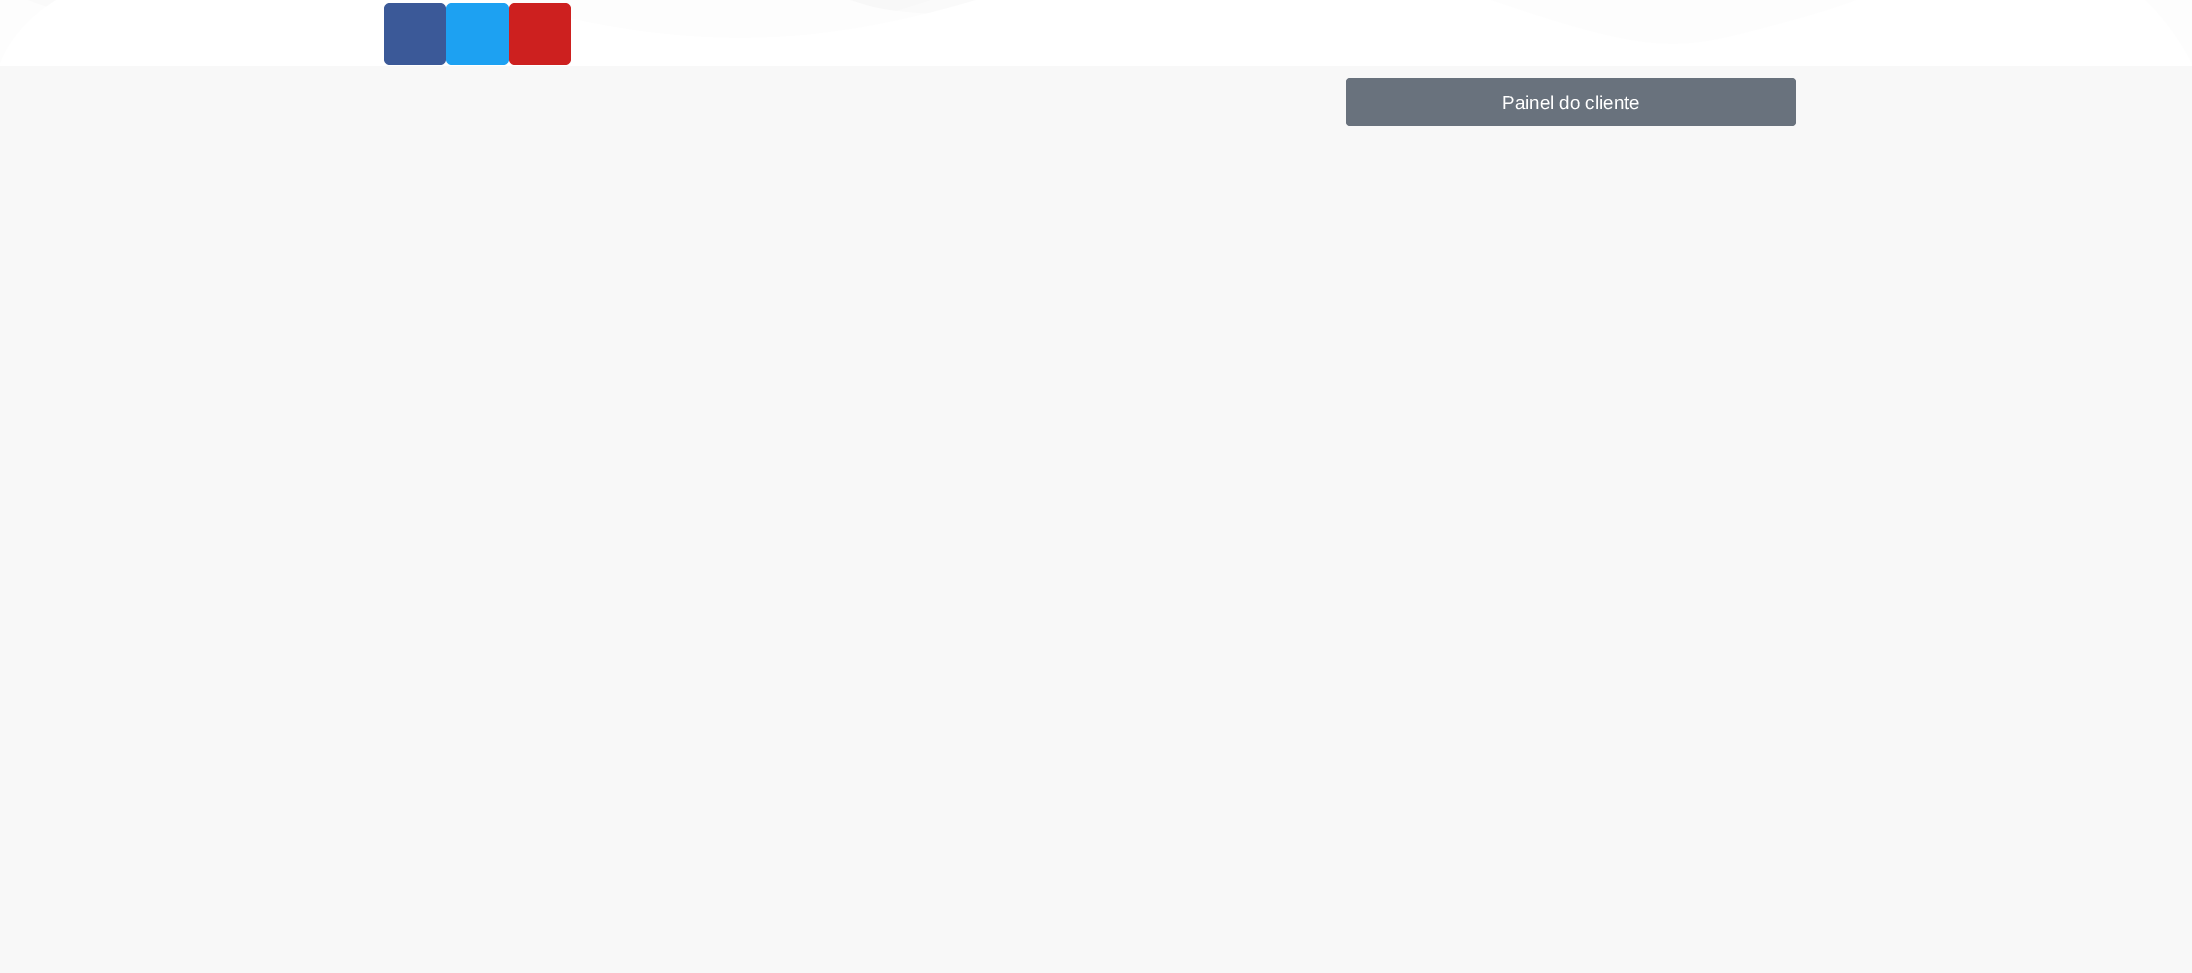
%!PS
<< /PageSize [2192 973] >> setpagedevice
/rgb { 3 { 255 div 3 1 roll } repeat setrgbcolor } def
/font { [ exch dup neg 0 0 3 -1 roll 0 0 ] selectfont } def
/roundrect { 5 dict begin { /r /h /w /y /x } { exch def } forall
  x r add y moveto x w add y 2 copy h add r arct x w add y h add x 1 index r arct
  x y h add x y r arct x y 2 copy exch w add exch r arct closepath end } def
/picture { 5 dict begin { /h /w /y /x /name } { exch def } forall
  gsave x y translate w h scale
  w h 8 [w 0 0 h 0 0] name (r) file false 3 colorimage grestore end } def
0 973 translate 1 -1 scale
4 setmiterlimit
248 248 248 rgb
0 0 2192 973 rectfill
(img/1.rgb) 0 0 2192 66 picture
59 89 152 rgb
384 3 62 62 6 roundrect fill
29 161 242 rgb
446 3 63 62 6 roundrect fill
205 32 31 rgb
509 3 62 62 6 roundrect fill
105 114 125 rgb
1346 78 450 48 4 roundrect fill
/LiberationSans-Regular 18.75 font
255 255 255 rgb
1502 109 moveto (Painel do cliente) show
showpage
